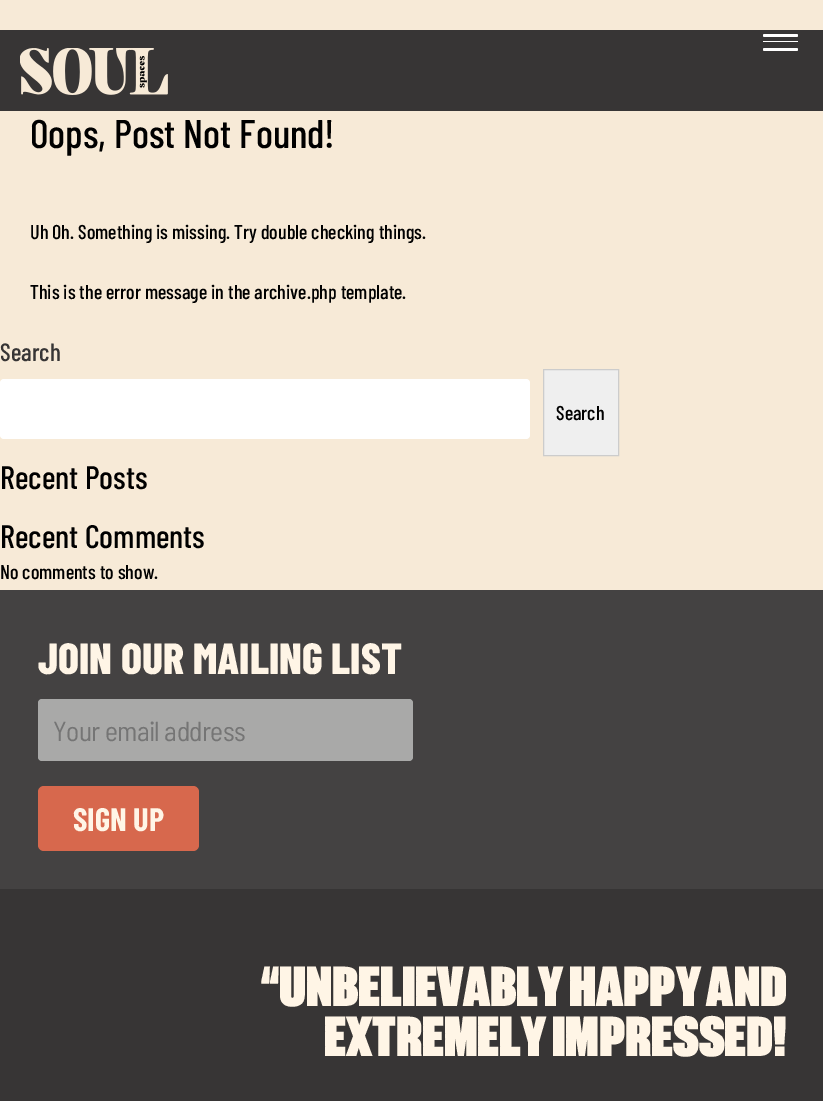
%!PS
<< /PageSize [823 1101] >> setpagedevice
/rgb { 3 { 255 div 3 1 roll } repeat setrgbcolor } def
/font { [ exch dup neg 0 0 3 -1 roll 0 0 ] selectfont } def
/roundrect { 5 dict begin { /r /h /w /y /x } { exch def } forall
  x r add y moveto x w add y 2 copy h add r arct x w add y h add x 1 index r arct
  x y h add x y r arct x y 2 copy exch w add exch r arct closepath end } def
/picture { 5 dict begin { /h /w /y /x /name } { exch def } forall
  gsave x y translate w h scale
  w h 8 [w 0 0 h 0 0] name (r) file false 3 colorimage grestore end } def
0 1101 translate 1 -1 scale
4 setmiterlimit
247 234 215 rgb
0 0 823 1101 rectfill
55 53 53 rgb
0 30 823 81 rectfill
255 255 255 rgb
763 34 35 3 1.5 roundrect fill
763 41 35 1 0.5 roundrect fill
763 48 35 3 1.5 roundrect fill
(img/1.rgb) 20 48 148 47 picture
0 379 530 60 4 roundrect fill
239 239 239 rgb
543.5 369.5 moveto 618.5 369.5 lineto 618.5 455.5 lineto 543.5 455.5 lineto closepath gsave fill grestore
204 204 204 rgb
stroke
68 66 66 rgb
0 590 823 299 rectfill
169 169 168 rgb
38 699 375 62 4 roundrect fill
215 104 77 rgb
38 786 161 65 6 roundrect fill
55 53 53 rgb
0 889 823 212 rectfill
/BarlowCondensed-Medium 40 font
0 0 0 rgb
30 148 moveto (Oops, Post Not Found!) show
/BarlowCondensed-Medium 20 font
30 239 moveto (Uh Oh. Something is missing. Try double checking things.) show
30 299 moveto (This is the error message in the archive.php template.) show
/BarlowCondensed-Medium 25 font
55 53 53 rgb
0 361 moveto (Search) show
/BarlowCondensed-Medium 20 font
0 0 0 rgb
556 420 moveto (Search) show
/BarlowCondensed-Medium 32.5 font
0 489 moveto (Recent Posts) show
0 548 moveto (Recent Comments) show
/BarlowCondensed-Medium 20 font
0 579 moveto (No comments to show.) show
/BarlowCondensed-ExtraBold 43.75 font
255 245 230 rgb
38 674 moveto (JOIN OUR MAILING LIST) show
/BarlowSemiCondensed-Regular 27.5 font
117 117 117 rgb
53 741 moveto -0.6 0 (Your email address) ashow
/BarlowCondensed-Bold 32.5 font
255 245 230 rgb
73 831 moveto (SIGN UP) show
/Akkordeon-Regular 56.25 font
261 1006 moveto (“UNBELIEVABLY HAPPY AND) show
324 1056 moveto (EXTREMELY IMPRESSED!) show
showpage
